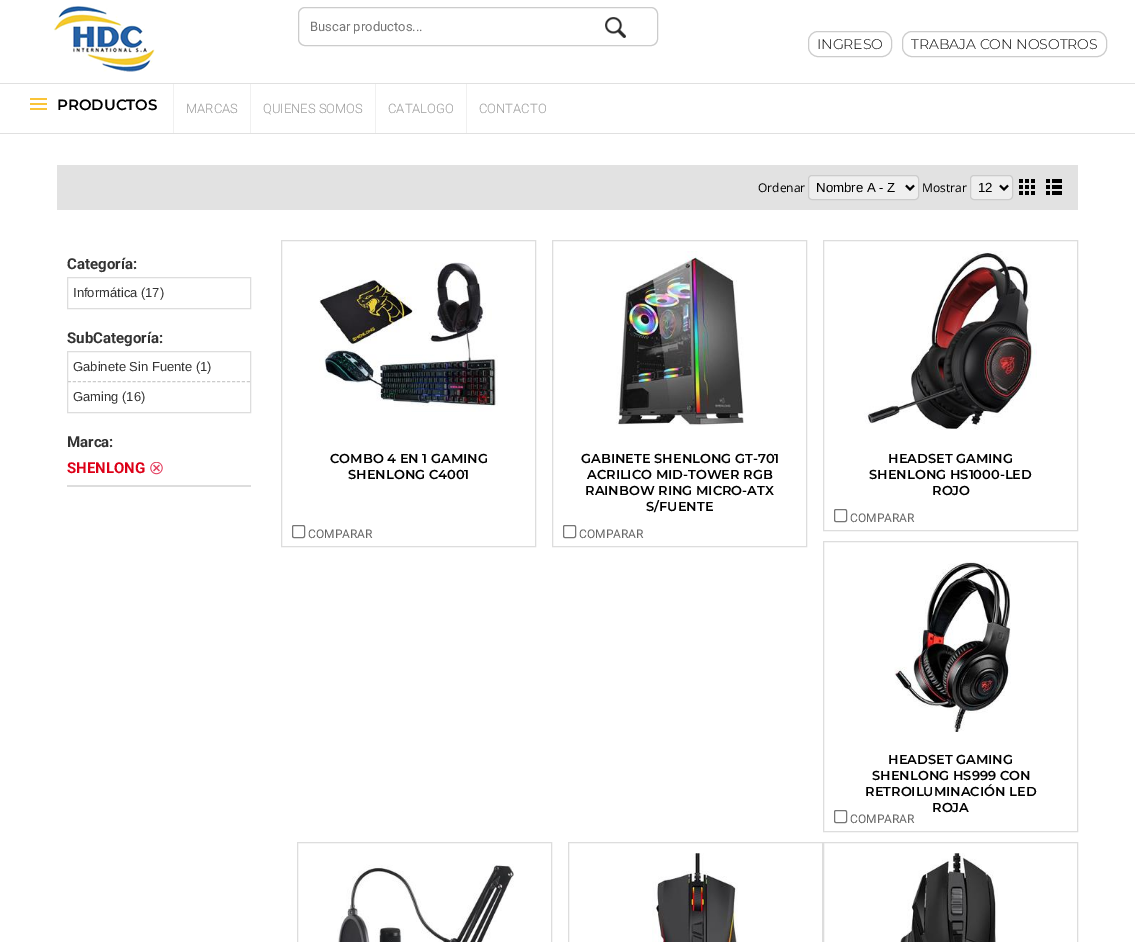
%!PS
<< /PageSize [1135 942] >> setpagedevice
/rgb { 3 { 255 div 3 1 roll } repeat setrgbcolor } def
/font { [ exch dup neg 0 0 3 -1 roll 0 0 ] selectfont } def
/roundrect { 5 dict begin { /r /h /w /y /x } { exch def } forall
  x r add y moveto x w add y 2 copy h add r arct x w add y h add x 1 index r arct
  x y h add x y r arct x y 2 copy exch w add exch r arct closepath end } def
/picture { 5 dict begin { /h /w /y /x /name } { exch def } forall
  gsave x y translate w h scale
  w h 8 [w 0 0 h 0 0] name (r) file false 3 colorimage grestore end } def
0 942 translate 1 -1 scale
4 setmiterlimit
255 255 255 rgb
0 0 1135 942 rectfill
(img/1.rgb) 53 5 102 67 picture
204 204 204 rgb
298.5 7.5 359 38 6.5 roundrect stroke
(img/2.rgb) 605 17 21 21 picture
808.5 31.5 83 25 9.5 roundrect stroke
902.5 31.5 204 25 9.5 roundrect stroke
224 224 224 rgb
0 83 1135 1 rectfill
0 133 1135 1 rectfill
(img/3.rgb) 30 98 17 12 picture
[
  [173 84 1 49 240 240 240]
  [250 84 1 49 240 240 240]
  [375 84 1 49 240 240 240]
  [466 84 1 49 240 240 240]
  [57 165 1021 45 226 226 226]
] { aload pop rgb rectfill } forall
239 239 239 rgb
808.5 175.5 110 24 3.5 roundrect gsave fill grestore
204 204 204 rgb
stroke
0 0 0 rgb
2 setlinewidth
906 185.5 moveto 910 189.5 lineto 914 185.5 lineto stroke
239 239 239 rgb
970.5 175.5 42 24 3.5 roundrect gsave fill grestore
204 204 204 rgb
1 setlinewidth
stroke
0 0 0 rgb
2 setlinewidth
1000 185.5 moveto 1004 189.5 lineto 1008 185.5 lineto stroke
(img/4.rgb) 1019 179 16 16 picture
(img/5.rgb) 1046 179 16 16 picture
221 221 221 rgb
1 setlinewidth
67.5 277.5 183 31 rectstroke
67.5 351.5 183 61 rectstroke
204 204 204 rgb
[3 1.97] 0 setdash
68 381.5 moveto 250 381.5 lineto stroke
(img/6.rgb) 150 462 13 13 picture
221 221 221 rgb
67 485 184 2 rectfill
[] 0 setdash
281.5 240.5 254 306 rectstroke
(img/7.rgb) 319 262 179 150 picture
118 118 118 rgb
292.5 525.5 12 12 1.5 roundrect stroke
221 221 221 rgb
552.5 240.5 254 306 rectstroke
(img/8.rgb) 616 251 128 175 picture
118 118 118 rgb
563.5 525.5 12 12 1.5 roundrect stroke
221 221 221 rgb
823.5 240.5 254 290 rectstroke
(img/9.rgb) 864 251 173 179 picture
118 118 118 rgb
834.5 509.5 12 12 1.5 roundrect stroke
221 221 221 rgb
823.5 541.5 254 290 rectstroke
(img/10.rgb) 894 561 117 171 picture
118 118 118 rgb
834.5 810.5 12 12 1.5 roundrect stroke
221 221 221 rgb
297.5 842.5 254 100 rectstroke
(img/11.rgb) 337 864 177 78 picture
568.5 842.5 254 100 rectstroke
(img/12.rgb) 652 853 86 89 picture
823.5 842.5 254 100 rectstroke
(img/13.rgb) 900 853 98 89 picture
/Roboto-Regular 13 font
117 117 117 rgb
310 31 moveto (Buscar productos...) show
/Montserrat-Light 14 font
0 0 0 rgb
817 49 moveto (INGRESO) show
911 49 moveto (TRABAJA CON NOSOTROS) show
/Montserrat-SemiBold 15 font
57 110 moveto (PRODUCTOS) show
/Roboto-Light 13 font
153 153 153 rgb
[
  [(MARCAS) 186 113]
  [(QUIENES SOMOS) 263 113]
  [(CATALOGO) 388 113]
  [(CONTACTO) 479 113]
] { aload pop moveto show } forall
/OpenSans-Regular 12 font
0 0 0 rgb
758 192 moveto (Ordenar) show
/LiberationSans-Regular 13.25 font
816 192 moveto (Nombre A - Z) show
/OpenSans-Regular 12 font
922 192 moveto (Mostrar) show
/LiberationSans-Regular 13.25 font
978 192 moveto (12) show
/Roboto-Bold 15 font
51 51 51 rgb
67 269 moveto (Categoría:) show
/LiberationSans-Regular 13 font
73 297 moveto (Informática \(17\)) show
/Roboto-Bold 15 font
67 343 moveto (SubCategoría:) show
/LiberationSans-Regular 13 font
73 371 moveto (Gabinete Sin Fuente \(1\)) show
73 401 moveto (Gaming \(16\)) show
/Roboto-Bold 15 font
67 447 moveto (Marca:) show
221 0 23 rgb
67 473 moveto (SHENLONG) show
/Montserrat-SemiBold 13 font
0 0 0 rgb
330 463 moveto (COMBO 4 EN 1 GAMING) show
348 479 moveto (SHENLONG C4001) show
/Roboto-Regular 12 font
102 102 102 rgb
308 538 moveto (COMPARAR) show
/Montserrat-SemiBold 13 font
0 0 0 rgb
[
  [(GABINETE SHENLONG GT-701) 581 463]
  [(ACRILICO MID-TOWER RGB) 587 479]
  [(RAINBOW RING MICRO-ATX) 585 495]
  [(S/FUENTE) 646 511]
] { aload pop moveto show } forall
/Roboto-Regular 12 font
102 102 102 rgb
579 538 moveto (COMPARAR) show
/Montserrat-SemiBold 13 font
0 0 0 rgb
[
  [(HEADSET GAMING) 888 463]
  [(SHENLONG HS1000-LED) 869 479]
  [(ROJO) 932 495]
] { aload pop moveto show } forall
/Roboto-Regular 12 font
102 102 102 rgb
850 522 moveto (COMPARAR) show
/Montserrat-SemiBold 13 font
0 0 0 rgb
[
  [(HEADSET GAMING) 888 764]
  [(SHENLONG HS999 CON) 872 780]
  [(RETROILUMINACIÓN LED) 865 796]
  [(ROJA) 932 812]
] { aload pop moveto show } forall
/Roboto-Regular 12 font
102 102 102 rgb
850 823 moveto (COMPARAR) show
showpage
